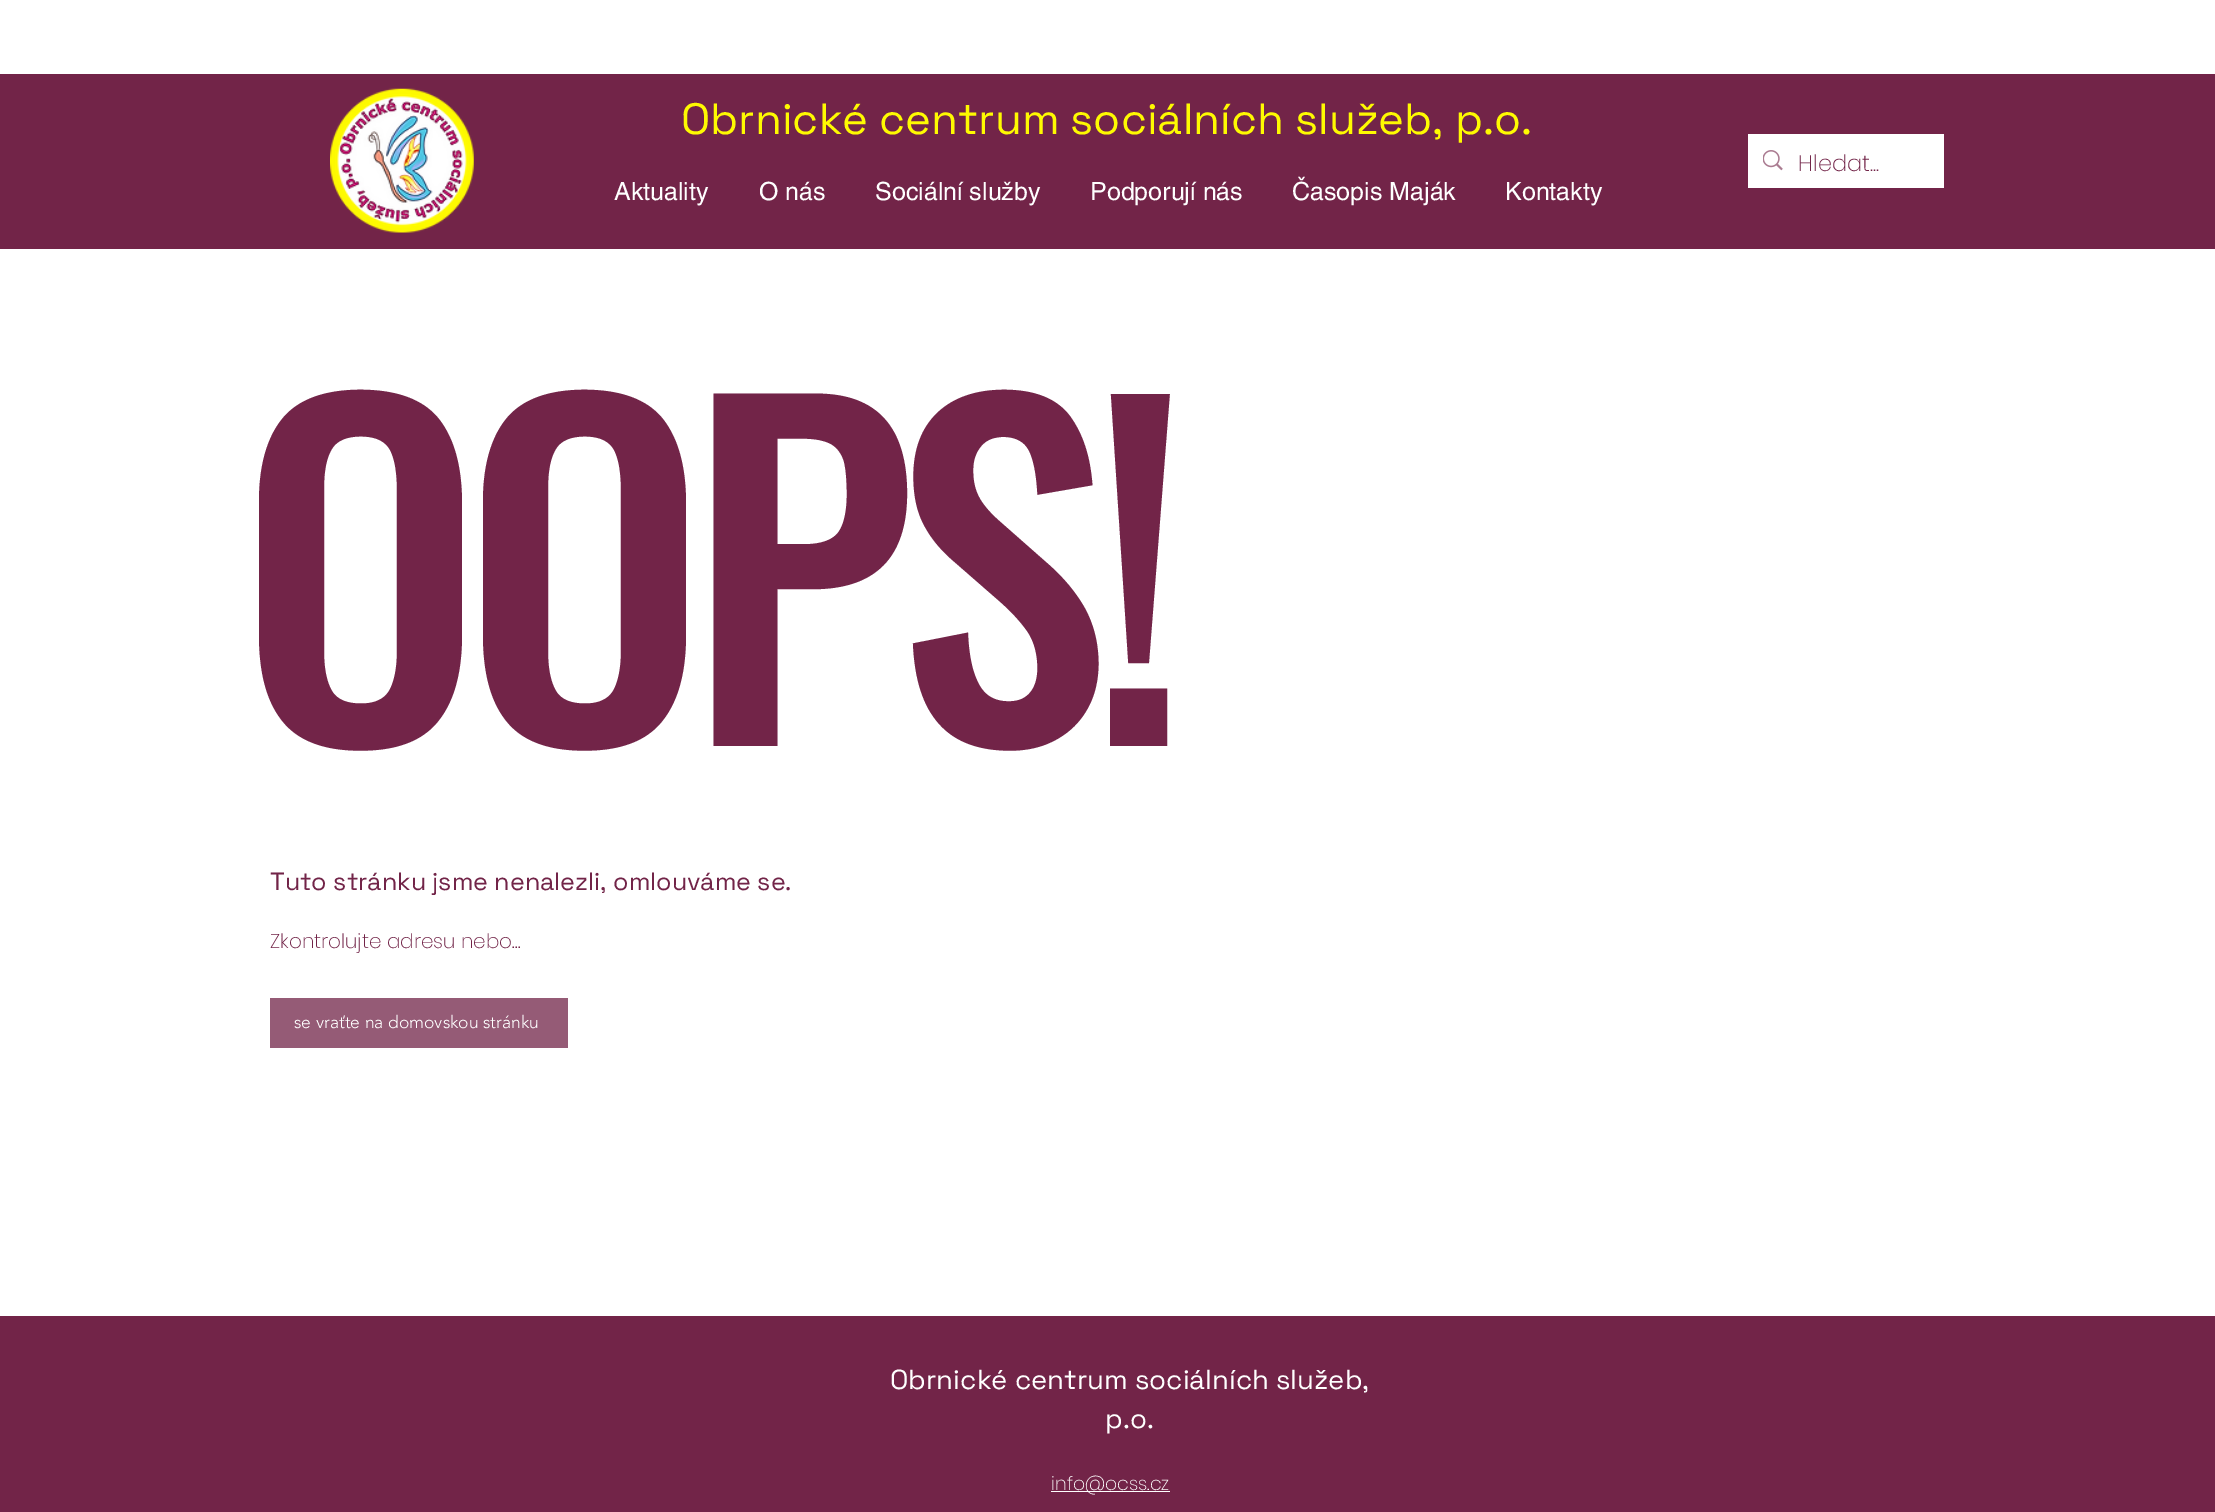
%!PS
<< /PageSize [2215 1512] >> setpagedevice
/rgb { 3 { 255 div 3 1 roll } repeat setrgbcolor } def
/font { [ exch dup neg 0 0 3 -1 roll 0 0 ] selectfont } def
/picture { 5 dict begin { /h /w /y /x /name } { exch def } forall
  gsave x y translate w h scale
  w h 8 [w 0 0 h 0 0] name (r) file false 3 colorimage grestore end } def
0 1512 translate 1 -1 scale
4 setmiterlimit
255 255 255 rgb
0 0 2215 1512 rectfill
114 36 72 rgb
0 74 2215 175 rectfill
(img/1.rgb) 330 88 144 145 picture
255 255 255 rgb
1748 134 196 54 rectfill
(img/2.rgb) 1763 150 20 21 picture
[
  [270 998 298 50 149 91 118]
  [0 1316 2215 196 114 36 72]
  [1051 1491 119 1 255 255 255]
] { aload pop rgb rectfill } forall
/SpaceGrotesk-Regular 43.75 font
254 250 1 rgb
681 134 moveto (Obrnické centrum sociálních služeb, p.o.) show
/Poppins-ExtraLight 22.5 font
114 36 72 rgb
1798 171 moveto (Hledat...) show
/helvetica-Regular 25 font
255 255 255 rgb
[
  [(Aktuality) 614 200]
  [(O nás) 759 200]
  [(Sociální služby) 875 200]
  [(Podporují nás) 1090 200]
  [(Časopis Maják) 1292 200]
  [(Kontakty) 1505 200]
] { aload pop moveto show } forall
/Oswald-Medium 437.5 font
114 36 72 rgb
238 746 moveto -22 0 (OOPS!) ashow
/SpaceGrotesk-Regular 25 font
270 890 moveto (Tuto stránku jsme nenalezli, omlouváme se.) show
/Poppins-ExtraLight 20 font
270 948 moveto (Zkontrolujte adresu nebo...) show
/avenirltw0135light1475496-Light 17.5 font
255 255 255 rgb
294 1028 moveto (se vraťte na domovskou stránku) show
/SpaceGrotesk-Regular 27.5 font
890 1389 moveto (Obrnické centrum sociálních služeb,) show
1105 1428 moveto (p.o.) show
/Poppins-ExtraLight 18.75 font
1051 1490 moveto (info@ocss.cz) show
showpage
